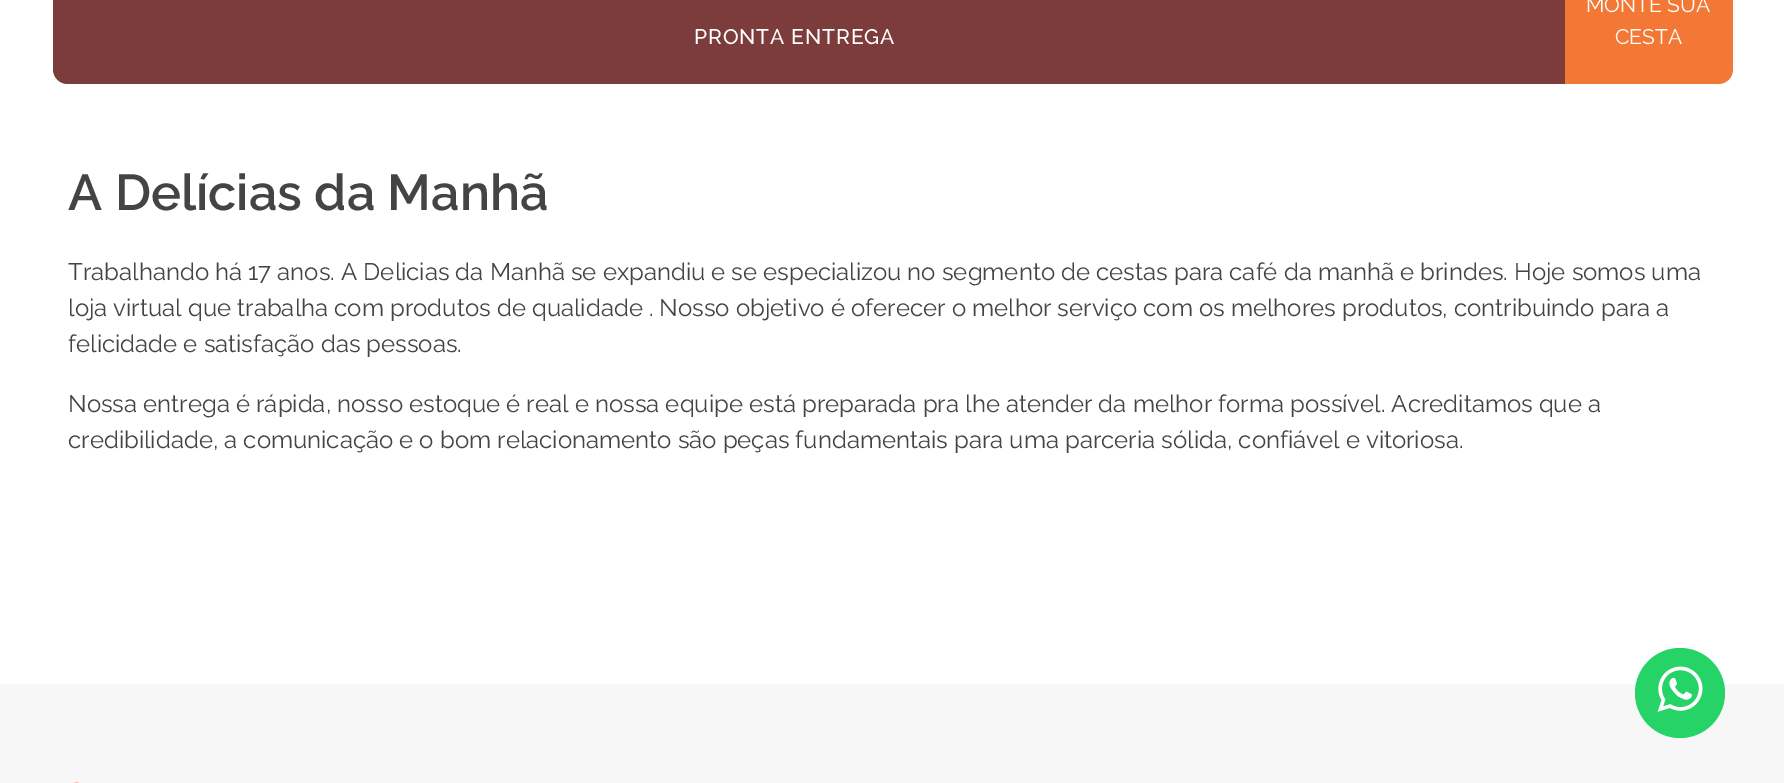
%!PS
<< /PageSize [1784 783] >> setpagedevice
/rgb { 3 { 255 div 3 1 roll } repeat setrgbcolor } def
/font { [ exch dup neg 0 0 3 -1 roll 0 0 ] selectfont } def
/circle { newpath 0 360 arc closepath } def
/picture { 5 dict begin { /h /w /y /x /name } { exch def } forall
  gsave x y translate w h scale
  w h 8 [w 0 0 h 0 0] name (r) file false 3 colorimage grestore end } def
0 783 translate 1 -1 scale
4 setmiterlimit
255 255 255 rgb
0 0 1784 783 rectfill
124 60 60 rgb
68 -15 moveto 1565 -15 lineto 1565 84 lineto 68 84 lineto 59.5 84 53 77.5 53 69 curveto 53 0 lineto 53 -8.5 59.5 -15 68 -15 curveto closepath fill
243 120 53 rgb
1565 -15 moveto 1718 -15 lineto 1726.5 -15 1733 -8.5 1733 0 curveto 1733 69 lineto 1733 77.5 1726.5 84 1718 84 curveto 1565 84 lineto closepath fill
247 247 247 rgb
0 684 1784 99 rectfill
37 211 102 rgb
1680 693 45 circle fill
(img/1.rgb) 1657 666 46 46 picture
(img/2.rgb) 74 782 5 1 picture
/Raleway-Medium 21 font
255 255 255 rgb
694 44 moveto 0.9 0 (PRONTA ENTREGA) ashow
/Raleway-Regular 21 font
1586 12 moveto (MONTE SUA) show
1615 44 moveto (CESTA) show
/Raleway-SemiBold 50.5 font
68 68 68 rgb
68 210 moveto (A Delícias da Manhã) show
/Raleway-Regular 24 font
[
  [(Trabalhando há 17 anos. A Delicias da Manhã se expandiu e se especializou no segmento de cestas para café da manhã e brindes. Hoje somos uma) 68 280]
  [(loja virtual que trabalha com produtos de qualidade . Nosso objetivo é oferecer o melhor serviço com os melhores produtos, contribuindo para a) 68 316]
  [(felicidade e satisfação das pessoas.) 68 352]
  [(Nossa entrega é rápida, nosso estoque é real e nossa equipe está preparada pra lhe atender da melhor forma possível. Acreditamos que a) 68 412]
  [(credibilidade, a comunicação e o bom relacionamento são peças fundamentais para uma parceria sólida, confiável e vitoriosa.) 68 448]
] { aload pop moveto show } forall
showpage
